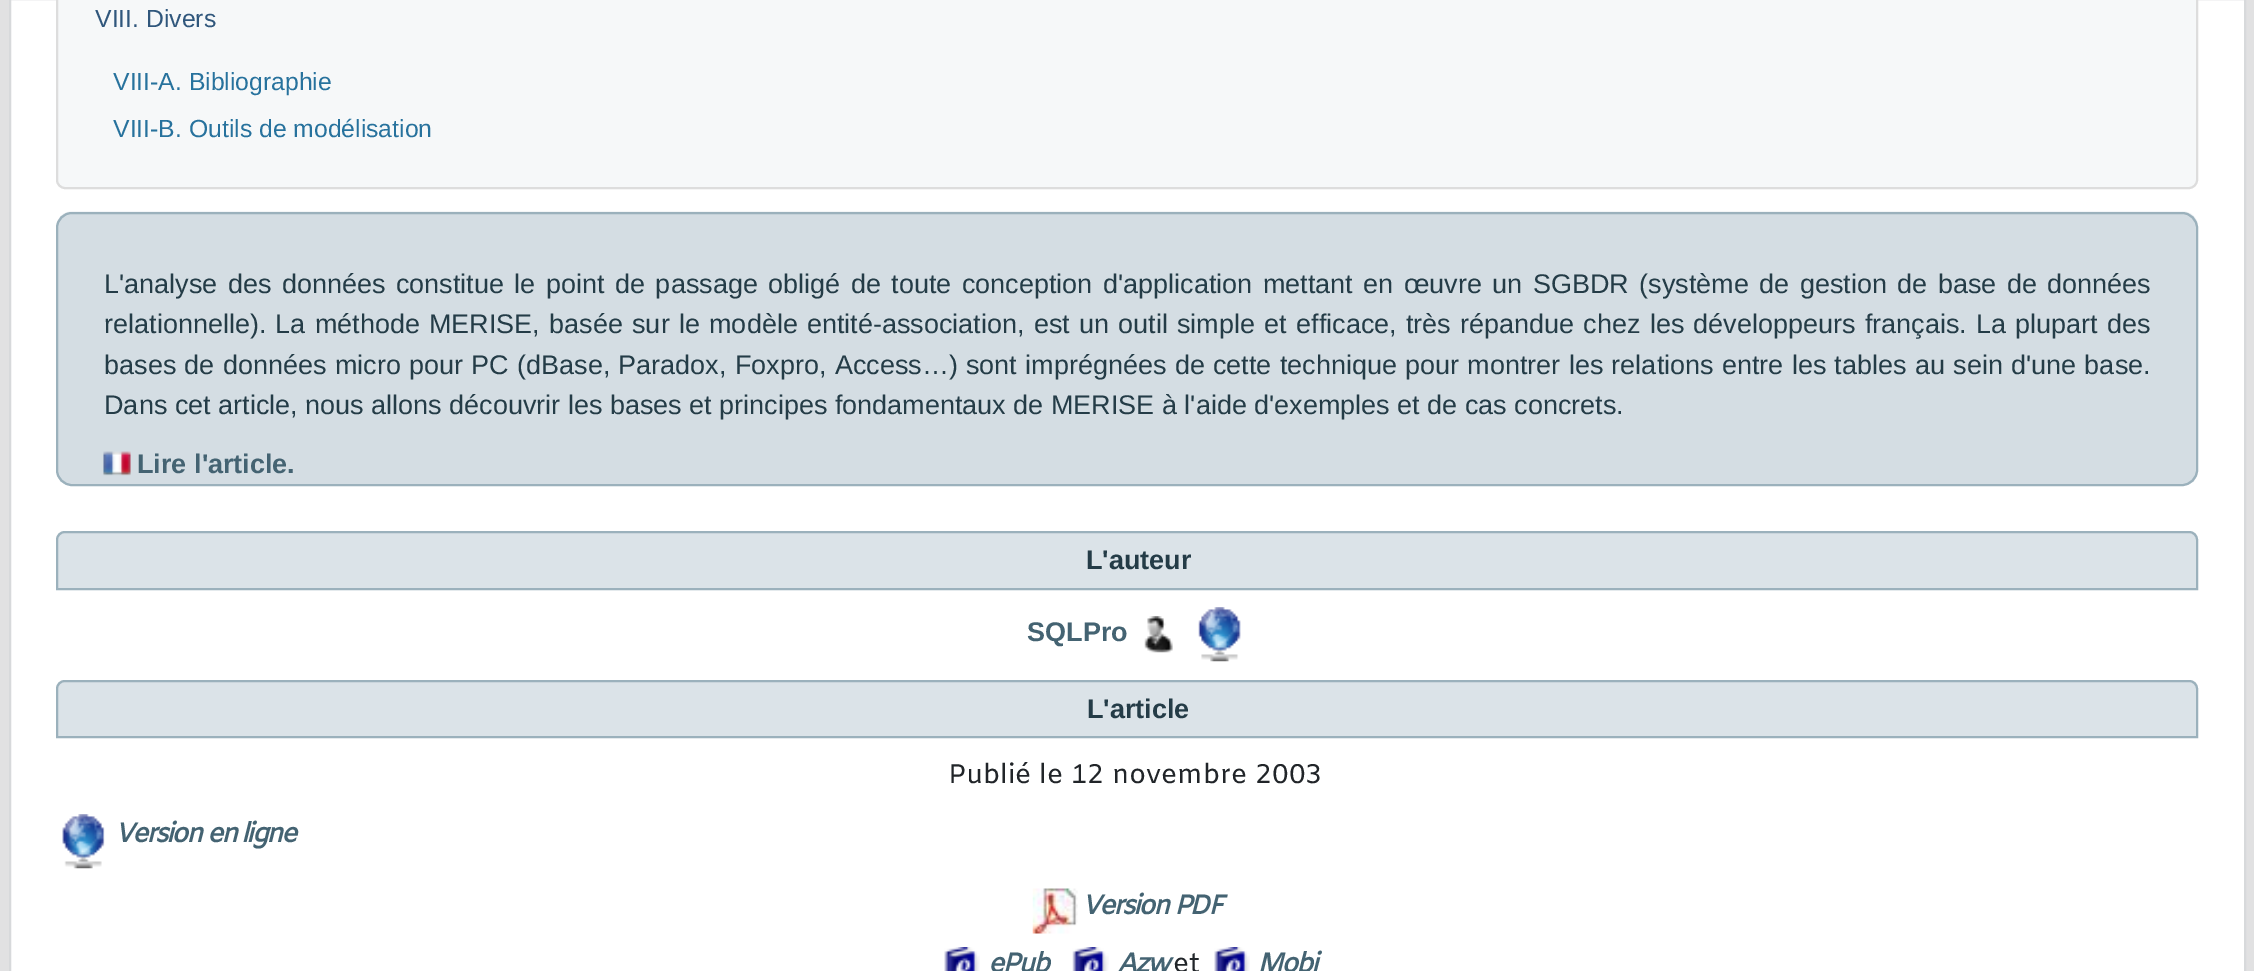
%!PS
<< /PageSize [2254 971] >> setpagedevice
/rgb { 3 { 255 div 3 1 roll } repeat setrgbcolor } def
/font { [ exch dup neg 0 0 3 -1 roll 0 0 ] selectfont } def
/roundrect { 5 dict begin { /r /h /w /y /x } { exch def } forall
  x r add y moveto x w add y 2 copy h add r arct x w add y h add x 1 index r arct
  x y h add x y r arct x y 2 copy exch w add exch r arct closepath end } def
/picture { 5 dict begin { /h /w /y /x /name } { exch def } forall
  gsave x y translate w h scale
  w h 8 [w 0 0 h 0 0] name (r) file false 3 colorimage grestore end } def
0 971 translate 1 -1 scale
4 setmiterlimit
225 225 226 rgb
0 0 2254 971 rectfill
255 255 255 rgb
10 -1 moveto 2245 -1 lineto 2245 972 lineto 10 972 lineto closepath gsave fill grestore
215 217 219 rgb
2 setlinewidth
stroke
246 248 249 rgb
57 -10 2140 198 8 roundrect gsave fill grestore
221 221 221 rgb
stroke
226 232 236 rgb
56 212 2142 274 16 roundrect fill
(img/1.rgb) 56 211 2142 275 picture
155 177 188 rgb
57 213 2140 272 15 roundrect stroke
(img/2.rgb) 103 451 28 25 picture
235 240 242 rgb
65 531 moveto 2189 531 lineto 2194 531 2198 535 2198 540 curveto 2198 590 lineto 56 590 lineto 56 540 lineto 56 535 60 531 65 531 curveto closepath fill
(img/3.rgb) 56 533 2142 55 picture
155 177 188 rgb
65 532 moveto 2189 532 lineto 2193.5 532 2197 535.5 2197 540 curveto 2197 589 lineto 57 589 lineto 57 540 lineto 57 535.5 60.5 532 65 532 curveto closepath stroke
(img/4.rgb) 1144 616 29 37 picture
(img/5.rgb) 1198 607 43 55 picture
235 240 242 rgb
65 680 moveto 2189 680 lineto 2194 680 2198 684 2198 689 curveto 2198 738 lineto 56 738 lineto 56 689 lineto 56 684 60 680 65 680 curveto closepath fill
(img/6.rgb) 56 681 2142 55 picture
155 177 188 rgb
65 681 moveto 2189 681 lineto 2193.5 681 2197 684.5 2197 689 curveto 2197 737 lineto 57 737 lineto 57 689 lineto 57 684.5 60.5 681 65 681 curveto closepath stroke
(img/7.rgb) 62 814 43 55 picture
(img/8.rgb) 1032 888 46 46 picture
(img/9.rgb) 944 947 36 24 picture
(img/10.rgb) 1072 947 37 24 picture
(img/9.rgb) 1214 947 36 24 picture
/LiberationSans-Regular 24.75 font
48 87 124 rgb
95 27 moveto (VIII. Divers) show
39 114 157 rgb
113 90 moveto (VIII-A. Bibliographie) show
113 137 moveto (VIII-B. Outils de modélisation) show
/LiberationSans-Regular 27 font
36 60 71 rgb
104 293 moveto 3 0 32 (L'analyse des données constitue le point de passage obligé de toute conception d'application mettant en œuvre un SGBDR \(système de gestion de base de données) widthshow
104 333 moveto 1.75 0 32 (relationnelle\). La méthode MERISE, basée sur le modèle entité-association, est un outil simple et efficace, très répandue chez les développeurs français. La plupart des) widthshow
104 374 moveto 0.8 0 32 (bases de données micro pour PC \(dBase, Paradox, Foxpro, Access…\) sont imprégnées de cette technique pour montrer les relations entre les tables au sein d'une base.) widthshow
104 414 moveto (Dans cet article, nous allons découvrir les bases et principes fondamentaux de MERISE à l'aide d'exemples et de cas concrets.) show
/LiberationSans-Bold 27 font
68 99 114 rgb
137 473 moveto (Lire l'article.) show
36 60 71 rgb
1086 569 moveto (L'auteur) show
68 99 114 rgb
1027 641 moveto (SQLPro) show
36 60 71 rgb
1087 718 moveto (L'article) show
/Amiko-Regular 27 font
33 37 41 rgb
948 783 moveto (Publié le 12 novembre 2003) show
/Amiko-BoldItalic 27 font
68 99 114 rgb
115 842 moveto -2.25 0 (Version en ligne) ashow
1082 914 moveto -2.25 0 (Version PDF) ashow
988 972 moveto -2.25 0 (ePub) ashow
1117 972 moveto -2.25 0 (Azw) ashow
/Amiko-Regular 27 font
33 37 41 rgb
1173 972 moveto (et) show
/Amiko-BoldItalic 27 font
68 99 114 rgb
1257 972 moveto -2.25 0 (Mobi) ashow
showpage
